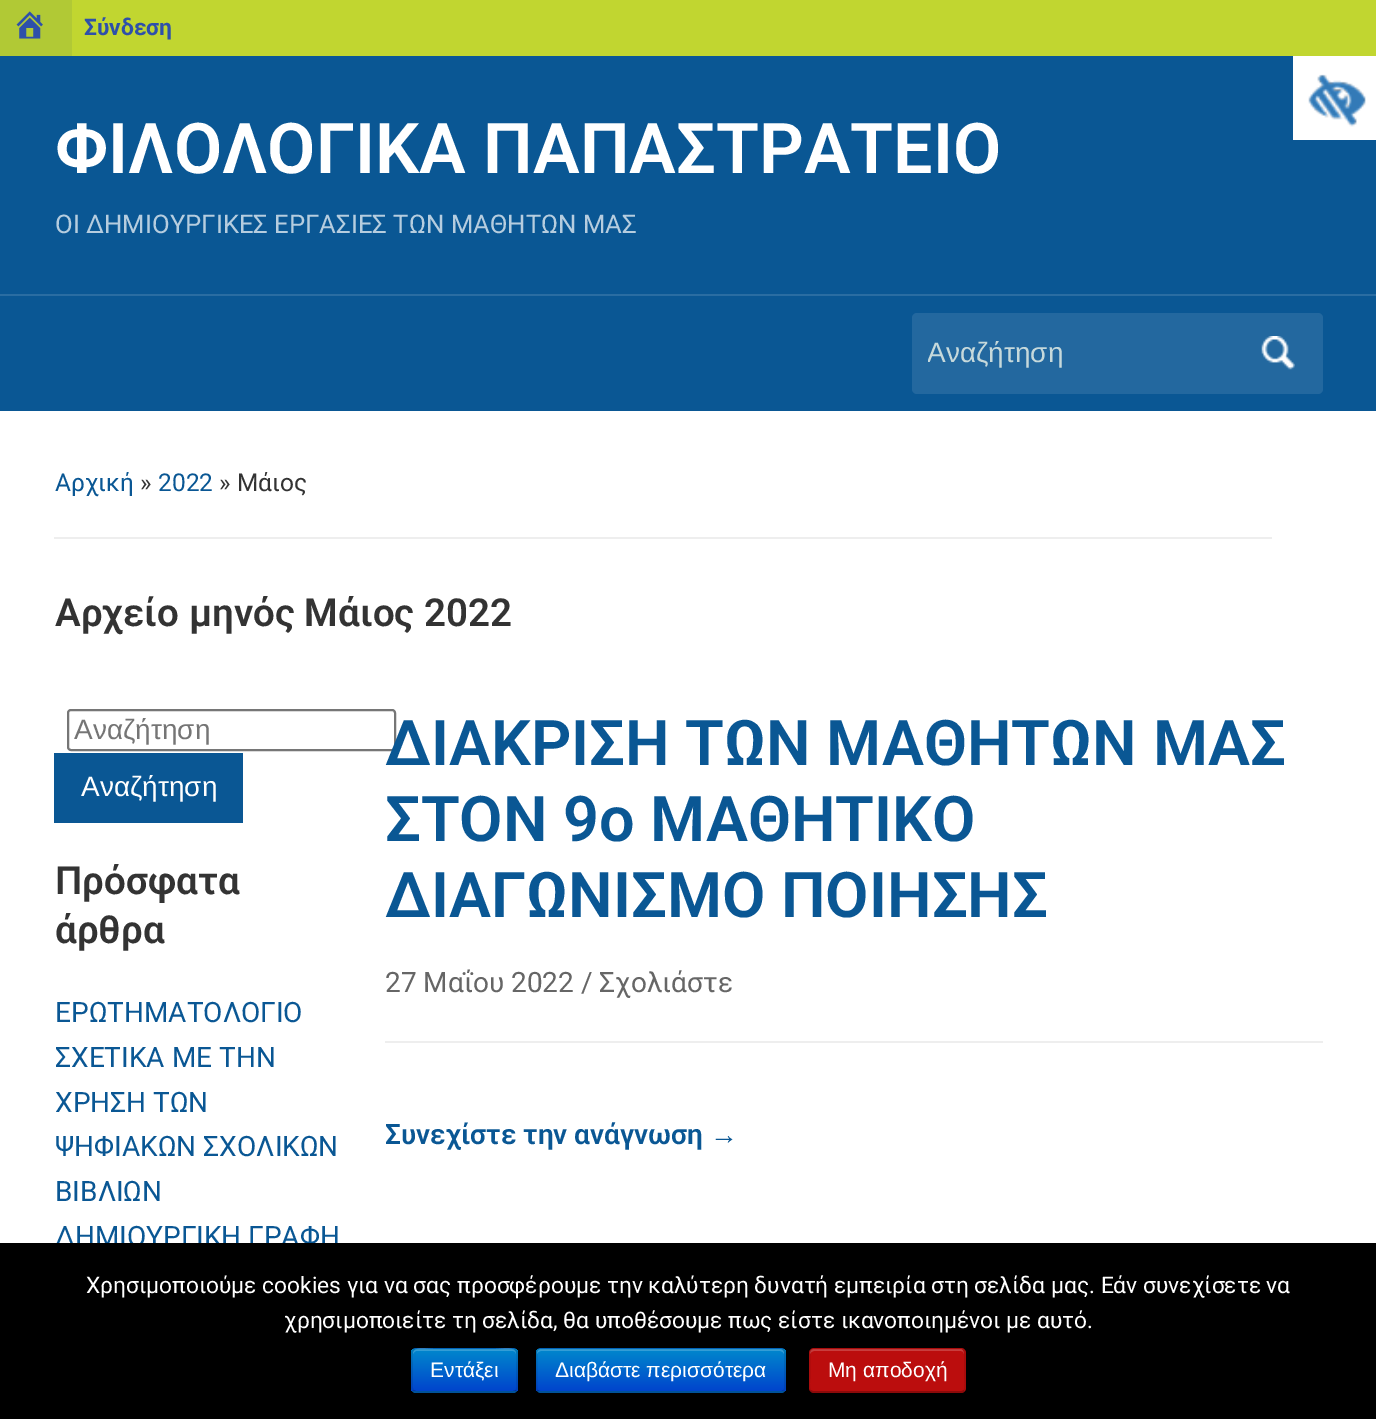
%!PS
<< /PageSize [1376 1419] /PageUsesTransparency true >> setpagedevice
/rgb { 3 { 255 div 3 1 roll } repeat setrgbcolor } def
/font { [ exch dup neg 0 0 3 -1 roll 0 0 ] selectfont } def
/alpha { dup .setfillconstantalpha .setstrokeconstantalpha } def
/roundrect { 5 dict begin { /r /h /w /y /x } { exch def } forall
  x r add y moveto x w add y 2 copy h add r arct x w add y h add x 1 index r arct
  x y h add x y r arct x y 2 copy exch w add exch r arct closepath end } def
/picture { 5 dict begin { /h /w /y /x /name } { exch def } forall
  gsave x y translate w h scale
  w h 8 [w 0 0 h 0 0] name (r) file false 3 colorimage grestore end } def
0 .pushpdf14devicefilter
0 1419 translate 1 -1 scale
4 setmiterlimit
255 255 255 rgb
0 0 1376 1419 rectfill
193 214 48 rgb
72 0 1304 56 rectfill
177 201 53 rgb
0 0 72 56 rectfill
(img/1.rgb) 16 11 27 28 picture
10 87 148 rgb
0 56 1376 355 rectfill
255 255 255 rgb
1293 56 83 84 rectfill
(img/2.rgb) 1308 74 58 53 picture
42 109 162 rgb
0 294 1376 2 rectfill
35 104 159 rgb
912 313 411 81 5 roundrect fill
(img/3.rgb) 1261 336 34 34 picture
238 238 238 rgb
54 537 1218 2 rectfill
118 118 118 rgb
2 setlinewidth
68 710 327 40 3 roundrect stroke
10 87 148 rgb
54 753 189 70 rectfill
238 238 238 rgb
385 1041 938 2 rectfill
/Roboto-Bold 22.75 font
46 80 170 rgb
84 35 moveto (Σύνδεση) show
/Roboto-SemiBold 70 font
255 255 255 rgb
55 173 moveto (ΦΙΛΟΛΟΓΙΚΑ ΠΑΠΑΣΤΡΑΤΕΙΟ) show
/Roboto-Regular 25.7 font
182 205 223 rgb
55 233 moveto (ΟΙ ΔΗΜΙΟΥΡΓΙΚΕΣ ΕΡΓΑΣΙΕΣ ΤΩΝ ΜΑΘΗΤΩΝ ΜΑΣ) show
gsave
928 338 308 31 rectclip
/LiberationSans-Regular 28 font
198 217 219 rgb
927 362 moveto (Αναζήτηση) show
grestore
/Roboto-Regular 24.5 font
10 87 148 rgb
55 491 moveto (Αρχική) show
51 51 51 rgb
140 491 moveto (») show
10 87 148 rgb
158 491 moveto (2022) show
51 51 51 rgb
219 491 moveto (» Μάιος) show
/Roboto-SemiBold 38.5 font
55 626 moveto (Αρχείο μηνός Μάιος 2022) show
/LiberationSans-Regular 28 font
117 117 117 rgb
74 739 moveto (Αναζήτηση) show
255 255 255 rgb
81 796 moveto (Αναζήτηση) show
/Roboto-SemiBold 38.5 font
51 51 51 rgb
55 894 moveto (Πρόσφατα) show
55 943 moveto (άρθρα) show
/Roboto-Regular 28 font
10 87 148 rgb
[
  [(ΕΡΩΤΗΜΑΤΟΛΟΓΙΟ) 55 1022]
  [(ΣΧΕΤΙΚΑ ΜΕ ΤΗΝ) 55 1067]
  [(ΧΡΗΣΗ ΤΩΝ) 55 1112]
  [(ΨΗΦΙΑΚΩΝ ΣΧΟΛΙΚΩΝ) 55 1156]
  [(ΒΙΒΛΙΩΝ) 55 1201]
  [(ΔΗΜΙΟΥΡΓΙΚΗ ΓΡΑΦΗ) 55 1246]
] { aload pop moveto show } forall
/Roboto-SemiBold 63 font
[
  [(ΔΙΑΚΡΙΣΗ ΤΩΝ ΜΑΘΗΤΩΝ ΜΑΣ) 385 765]
  [(ΣΤΟΝ 9ο ΜΑΘΗΤΙΚΟ) 385 841]
  [(ΔΙΑΓΩΝΙΣΜΟ ΠΟΙΗΣΗΣ) 385 917]
] { aload pop moveto show } forall
/Roboto-Regular 28 font
102 102 102 rgb
385 992 moveto (27 Μαΐου 2022 / Σχολιάστε) show
/Roboto-SemiBold 28 font
10 87 148 rgb
385 1144 moveto (Συνεχίστε την ανάγνωση) show
/LiberationSans-Bold 28 font
710 1144 moveto (→) show
0 0 0 rgb
0 1243 1376 176 rectfill
/Roboto-Regular 22.75 font
255 255 255 rgb
86 1293 moveto (Χρησιμοποιούμε cookies για να σας προσφέρουμε την καλύτερη δυνατή εμπειρία στη σελίδα μας. Εάν συνεχίσετε να) show
284 1328 moveto (χρησιμοποιείτε τη σελίδα, θα υποθέσουμε πως είστε ικανοποιημένοι με αυτό.) show
0 109 204 rgb
411 1348 107 45 5 roundrect fill
gsave
411 1348 107 45 5 roundrect clip newpath
gsave 411 1349 moveto 518 1349 lineto 518 1391 lineto 411 1391 lineto closepath clip newpath
<< /ShadingType 2 /ColorSpace /DeviceRGB /Coords [465 1349 465 1391] /Extend [true true] /Function << /FunctionType 2 /Domain [0 1] /C0 [0 0.533 0.8] /C1 [0 0.267 0.8] /N 1 >> >> shfill grestore
grestore
0.2 alpha
255 255 255 rgb
416 1351 moveto 513 1351 lineto 515 1351 516 1353 516 1354 curveto 516 1345 500 1349 496 1349 curveto 433 1349 lineto 429 1349 413 1345 413 1354 curveto 413 1353 415 1351 416 1351 curveto closepath fill
0.25 alpha
0 0 0 rgb
1.8 setlinewidth
516 1391 moveto 513 1392 lineto 416 1392 lineto 413.5 1391 lineto stroke
0.1 alpha
413.5 1391 moveto 411 1388.5 412 1384.5 412 1382 curveto 412 1370 lineto 412 1345.5 407.5 1348.5 432.5 1348.5 curveto 496.5 1348.5 lineto 521.5 1348.5 517 1345.5 517 1370 curveto 517 1382 lineto 517 1384.5 518 1388.5 516 1391 curveto stroke
/LiberationSans-Regular 21 font
1 alpha
255 255 255 rgb
430 1377 moveto (Εντάξει) show
0 109 204 rgb
536 1348 250 45 5 roundrect fill
gsave
536 1348 250 45 5 roundrect clip newpath
gsave 536 1349 moveto 786 1349 lineto 786 1391 lineto 536 1391 lineto closepath clip newpath
<< /ShadingType 2 /ColorSpace /DeviceRGB /Coords [661 1349 661 1391] /Extend [true true] /Function << /FunctionType 2 /Domain [0 1] /C0 [0 0.533 0.8] /C1 [0 0.267 0.8] /N 1 >> >> shfill grestore
grestore
0.2 alpha
255 255 255 rgb
541 1351 moveto 780 1351 lineto 782 1351 784 1353 784 1354 curveto 784 1353 lineto 784 1351 782 1349 780 1349 curveto 541 1349 lineto 539 1349 537 1351 537 1353 curveto 537 1354 lineto 537 1353 539 1351 541 1351 curveto closepath fill
0.25 alpha
0 0 0 rgb
783.5 1391 moveto 783 1391.5 781.5 1392 780.5 1392 curveto 541 1392 lineto 539.5 1392 538.5 1391.5 537.5 1391 curveto stroke
0.1 alpha
537.5 1391 moveto 537 1390 536.5 1389 536.5 1388 curveto 536.5 1353 lineto 536.5 1351.5 537 1350.5 537.5 1349.5 curveto 538.5 1349 539.5 1348.5 541 1348.5 curveto 780.5 1348.5 lineto 781.5 1348.5 783 1349 783.5 1349.5 curveto 784.5 1350.5 785 1351.5 785 1353 curveto 785 1388 lineto 785 1389 784.5 1390 783.5 1391 curveto stroke
1 alpha
255 255 255 rgb
555 1377 moveto (Διαβάστε περισσότερα) show
187 13 13 rgb
809 1348 157 45 5 roundrect fill
201 61 61 rgb
814 1351 moveto 961 1351 lineto 963 1351 964 1353 964 1354 curveto 964 1352 963 1350 961 1349 curveto 814 1349 lineto 811 1349 810 1351 810 1354 curveto 810 1353 812 1351 814 1351 curveto closepath fill
0.25 alpha
0 0 0 rgb
964 1391 moveto 963 1391.5 962 1392 961 1392 curveto 814 1392 lineto 812.5 1392 811.5 1391.5 810.5 1391 curveto stroke
0.1 alpha
810.5 1391 moveto 808 1388 809.5 1379 809.5 1376 curveto 809.5 1358.5 lineto 809.5 1355 808.5 1348.5 814 1348.5 curveto 961 1348.5 lineto 966 1348.5 965 1355 965 1358.5 curveto 965 1376 lineto 965 1379 966.5 1388 964 1391 curveto stroke
1 alpha
255 255 255 rgb
828 1377 moveto (Μη αποδοχή) show
.poppdf14devicefilter showpage
